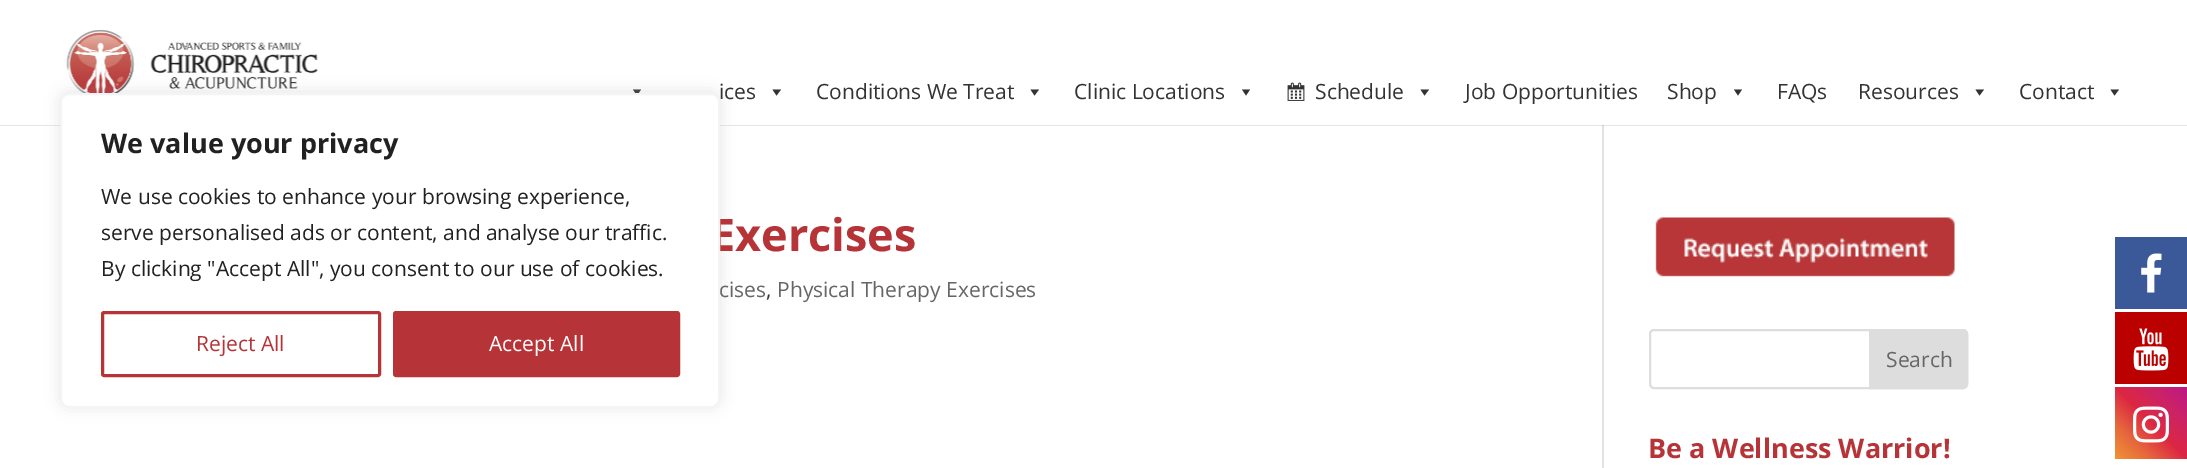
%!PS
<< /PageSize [2187 468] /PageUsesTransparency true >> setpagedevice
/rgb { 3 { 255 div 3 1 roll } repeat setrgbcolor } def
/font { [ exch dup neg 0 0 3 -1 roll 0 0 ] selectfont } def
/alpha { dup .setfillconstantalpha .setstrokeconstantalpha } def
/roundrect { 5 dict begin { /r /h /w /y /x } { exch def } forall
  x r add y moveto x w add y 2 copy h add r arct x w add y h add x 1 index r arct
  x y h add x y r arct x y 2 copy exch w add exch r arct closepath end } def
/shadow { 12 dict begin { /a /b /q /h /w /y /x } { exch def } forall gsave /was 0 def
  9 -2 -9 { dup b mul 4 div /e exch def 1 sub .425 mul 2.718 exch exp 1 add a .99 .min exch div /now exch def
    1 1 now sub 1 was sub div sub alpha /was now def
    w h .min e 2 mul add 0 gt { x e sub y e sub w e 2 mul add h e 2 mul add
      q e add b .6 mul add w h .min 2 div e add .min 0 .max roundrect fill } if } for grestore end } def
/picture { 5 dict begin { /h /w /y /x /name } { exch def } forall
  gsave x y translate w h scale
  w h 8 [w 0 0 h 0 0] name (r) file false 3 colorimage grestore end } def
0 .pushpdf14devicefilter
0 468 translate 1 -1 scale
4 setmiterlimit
255 255 255 rgb
0 0 2187 468 rectfill
230 230 230 rgb
0 125 2187 1 rectfill
(img/1.rgb) 66 30 252 64 picture
51 51 51 rgb
641 89.5 moveto 637 95.5 lineto 633 89.5 lineto closepath fill
172 171 171 rgb
60 92 660 315 9 7.5 0.3 shadow
51 51 51 rgb
781 89.5 moveto 776.5 95.5 lineto 772.5 89.5 lineto closepath fill
1039 89.5 moveto 1034.5 95.5 lineto 1030.5 89.5 lineto closepath fill
1250 89.5 moveto 1246 95.5 lineto 1242 89.5 lineto closepath fill
(img/2.rgb) 1287 82 18 19 picture
1429 89.5 moveto 1424.5 95.5 lineto 1420.5 89.5 lineto closepath fill
1742 89.5 moveto 1738 95.5 lineto 1734 89.5 lineto closepath fill
1984 89.5 moveto 1979.5 95.5 lineto 1975.5 89.5 lineto closepath fill
2119 89.5 moveto 2114.5 95.5 lineto 2110.5 89.5 lineto closepath fill
226 226 226 rgb
1602 125 2 343 rectfill
203 203 203 rgb
1602 125 2 1 rectfill
(img/3.rgb) 1655 217 300 60 picture
221 221 221 rgb
2 setlinewidth
1650 330 317 58 4 roundrect stroke
1870 330 moveto 1963 330 lineto 1965 330 1967 332 1967 334 curveto 1967 384 lineto 1967 386 1965 388 1963 388 curveto 1870 388 lineto closepath gsave fill grestore
stroke
59 89 152 rgb
2115 237 72 72 rectfill
(img/4.rgb) 2141 253 21 40 picture
187 0 0 rgb
2115 312 72 72 rectfill
(img/5.rgb) 2133 328 36 43 picture
gsave 2115 387 moveto 2187 387 lineto 2187 459 lineto 2115 459 lineto closepath clip newpath
<< /ShadingType 2 /ColorSpace /DeviceRGB /Coords [2115 459 2187 387] /Extend [true true] /Function << /FunctionType 3 /Domain [0 1] /Functions [<< /FunctionType 2 /Domain [0 1] /C0 [0.941 0.58 0.2] /C1 [0.902 0.408 0.235] /N 1 >> << /FunctionType 2 /Domain [0 1] /C0 [0.902 0.408 0.235] /C1 [0.863 0.153 0.263] /N 1 >> << /FunctionType 2 /Domain [0 1] /C0 [0.863 0.153 0.263] /C1 [0.8 0.137 0.4] /N 1 >> << /FunctionType 2 /Domain [0 1] /C0 [0.8 0.137 0.4] /C1 [0.737 0.094 0.533] /N 1 >>] /Bounds [0.25 0.5 0.75] /Encode [0 1 0 1 0 1 0 1] >> >> shfill grestore
(img/6.rgb) 2133 406 36 37 picture
/OpenSans-Regular 21 font
51 51 51 rgb
[
  [(ices) 719 99]
  [(Conditions We Treat) 816 99]
  [(Clinic Locations) 1074 99]
  [(Schedule) 1315 99]
  [(Job Opportunities) 1465 99]
  [(Shop) 1667 99]
  [(FAQs) 1777 99]
  [(Resources) 1858 99]
  [(Contact) 2019 99]
] { aload pop moveto show } forall
/OpenSans-Bold 45 font
182 52 55 rgb
710 251 moveto (Exercises) show
255 255 255 rgb
61 94 658 313 8 roundrect gsave fill grestore
244 244 244 rgb
stroke
182 52 55 rgb
394.5 312.5 284 63 1.5 roundrect gsave fill grestore
3 setlinewidth
stroke
/OpenSans-Regular 21 font
255 255 255 rgb
489 351 moveto (Accept All) show
182 52 55 rgb
102.5 312.5 277 63 1.5 roundrect stroke
196 351 moveto (Reject All) show
33 33 33 rgb
[
  [(By clicking "Accept All", you consent to our use of cookies.) 101 276]
  [(serve personalised ads or content, and analyse our traffic.) 101 240]
  [(We use cookies to enhance your browsing experience,) 101 204]
] { aload pop moveto show } forall
/OpenSans-Bold 27 font
101 153 moveto (We value your privacy) show
/OpenSans-Regular 21 font
102 102 102 rgb
719 297 moveto (cises) show
51 51 51 rgb
766 297 moveto (,) show
102 102 102 rgb
777 297 moveto (Physical Therapy Exercises) show
1886 367 moveto (Search) show
/OpenSans-Bold 27 font
182 52 55 rgb
1648 458 moveto (Be a Wellness Warrior!) show
.poppdf14devicefilter showpage
